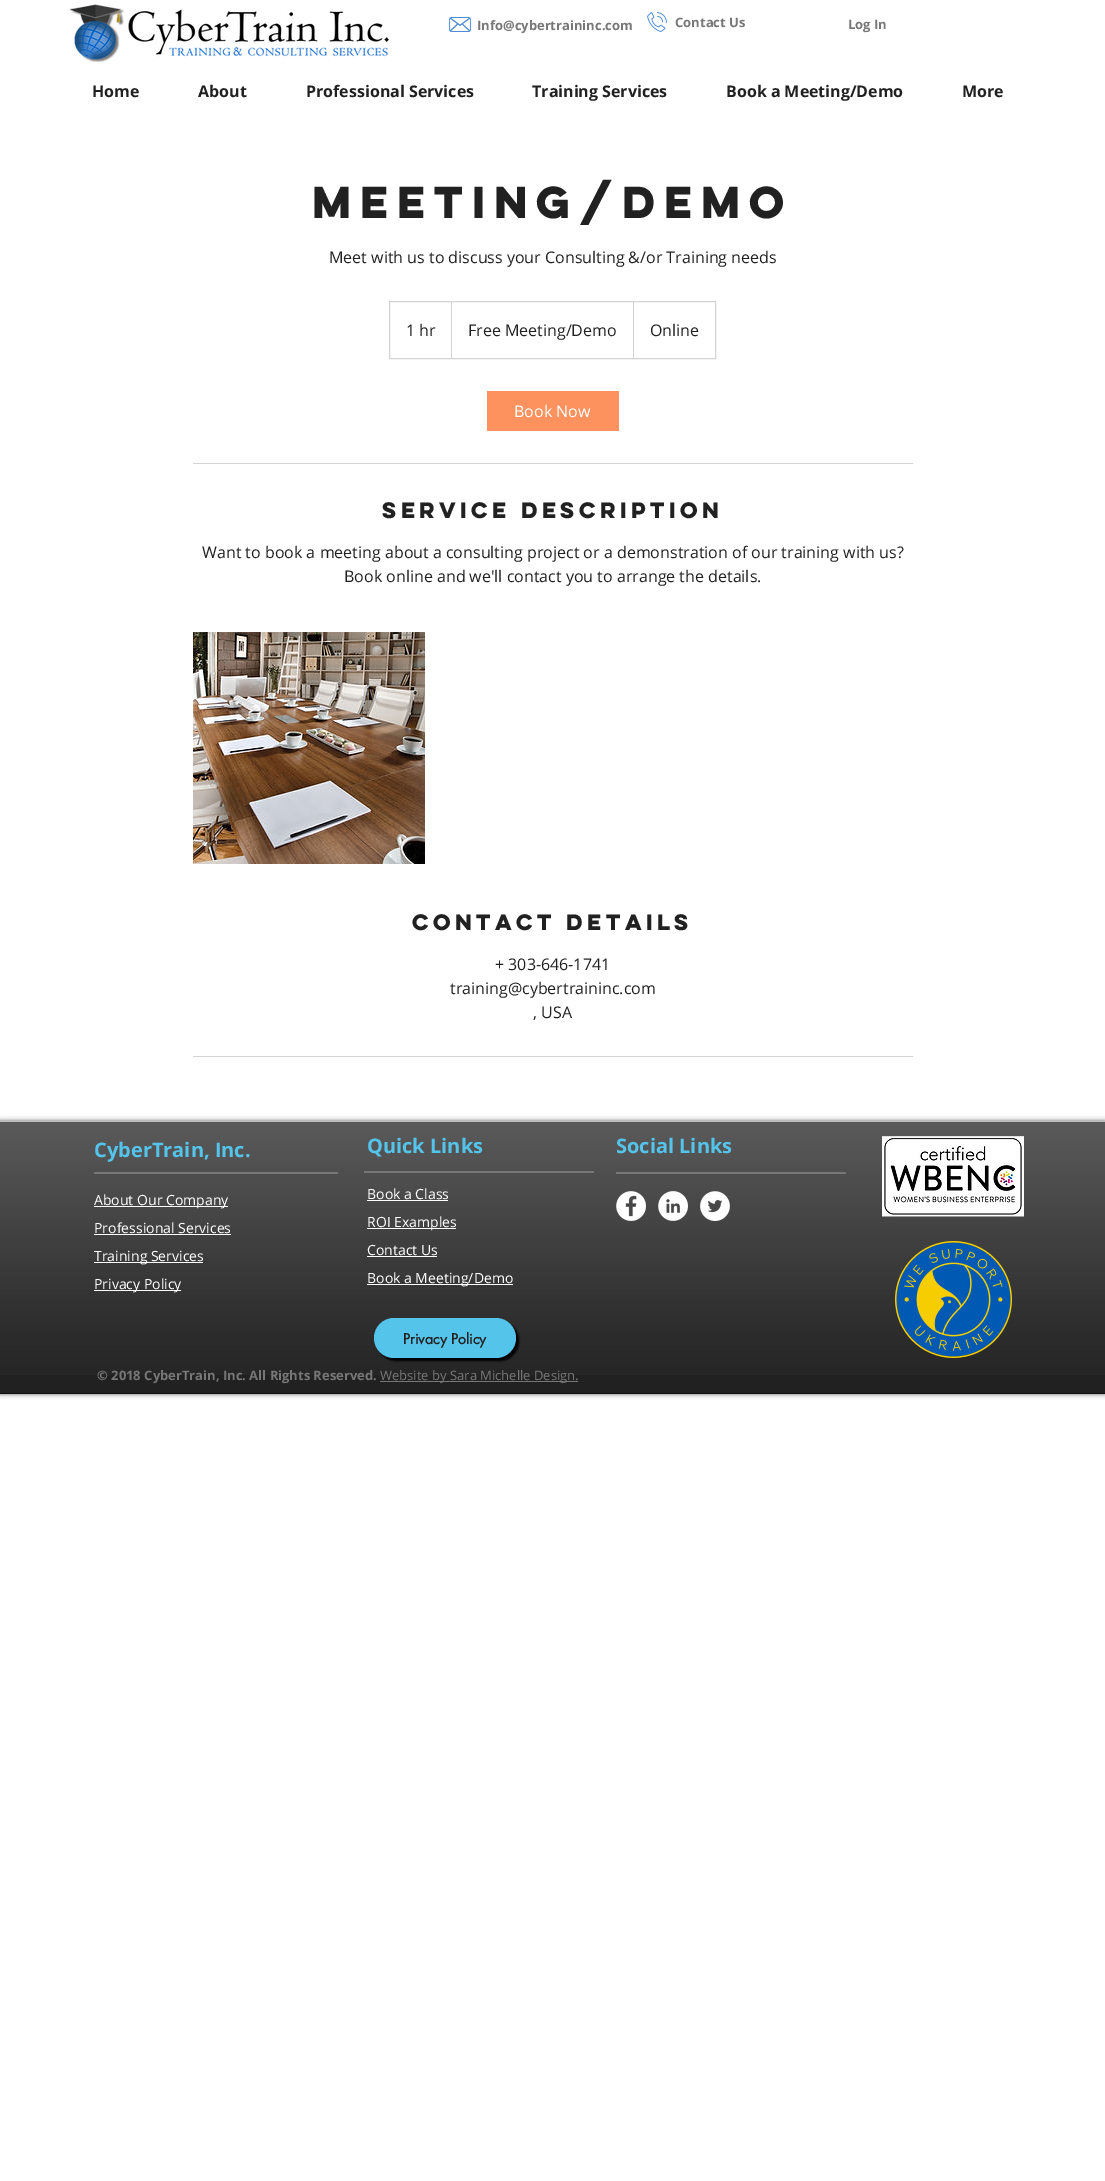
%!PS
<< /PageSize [1105 2181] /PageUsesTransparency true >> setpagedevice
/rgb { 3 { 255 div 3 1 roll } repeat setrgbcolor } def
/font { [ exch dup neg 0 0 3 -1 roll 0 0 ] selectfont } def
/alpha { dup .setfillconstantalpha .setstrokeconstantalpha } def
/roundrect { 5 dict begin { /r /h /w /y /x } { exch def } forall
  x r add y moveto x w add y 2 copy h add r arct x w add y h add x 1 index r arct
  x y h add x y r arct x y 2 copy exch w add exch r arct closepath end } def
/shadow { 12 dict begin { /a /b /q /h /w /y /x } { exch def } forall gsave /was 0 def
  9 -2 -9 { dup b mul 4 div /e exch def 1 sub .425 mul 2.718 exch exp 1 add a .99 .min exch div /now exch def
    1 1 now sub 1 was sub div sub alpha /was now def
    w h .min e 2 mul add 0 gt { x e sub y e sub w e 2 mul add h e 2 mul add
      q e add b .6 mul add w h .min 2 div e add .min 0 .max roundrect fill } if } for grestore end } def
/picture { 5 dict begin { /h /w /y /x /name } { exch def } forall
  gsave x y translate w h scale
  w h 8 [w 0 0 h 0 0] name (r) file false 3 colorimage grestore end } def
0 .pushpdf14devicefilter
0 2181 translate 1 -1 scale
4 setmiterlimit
255 255 255 rgb
0 0 1105 2181 rectfill
(img/1.rgb) 69 4 320 58 picture
(img/2.rgb) 449 17 22 15 picture
(img/3.rgb) 647 12 20 20 picture
211 211 211 rgb
389.5 301.5 326 57 rectstroke
451 358 moveto 451 301 lineto 452 302 lineto 452 358 lineto closepath fill
633 358 moveto 633 301 lineto 634 302 lineto 634 358 lineto closepath fill
254 146 95 rgb
487 391 132 40 rectfill
211 211 211 rgb
193 463 720 1 rectfill
(img/4.rgb) 193 632 232 232 picture
193 1056 720 1 rectfill
0 0 0 rgb
0 1121 1105 273 0 2.5 0.6 shadow
33 33 33 rgb
0 1122 1105 271 rectfill
(img/5.rgb) 0 1122 1105 253 picture
[
  [0 1393 1105 1 13 13 13]
  [0 1121 1105 1 189 189 189]
  [94 1172 244 2 119 119 119]
  [94 1206 134 1 255 255 255]
  [94 1234 137 1 255 255 255]
  [94 1262 109 1 255 255 255]
  [94 1290 87 1 255 255 255]
  [364 1171 230 2 119 119 119]
  [367 1200 81 1 255 255 255]
  [367 1228 89 1 255 255 255]
  [367 1256 70 1 255 255 255]
  [367 1284 146 1 255 255 255]
  [616 1172 230 2 119 119 119]
] { aload pop rgb rectfill } forall
(img/6.rgb) 616 1191 30 30 picture
(img/7.rgb) 658 1191 30 30 picture
(img/8.rgb) 700 1191 30 30 picture
(img/9.rgb) 882 1136 142 81 picture
0 0 0 rgb
377 1321 142 40 20 1 1 shadow
85 196 235 rgb
374 1318 142 40 20 roundrect fill
(img/10.rgb) 895 1241 117 117 picture
119 119 119 rgb
380 1381 198 1 rectfill
/OpenSans-Bold 13 font
[
  [(Info@cybertraininc.com) 477 30]
  [(Contact Us) 675 27]
  [(Log In) 848 29]
] { aload pop moveto show } forall
/OpenSans-Bold 16 font
33 33 33 rgb
[
  [(Home) 92 97]
  [(About) 198 97]
  [(Professional Services) 306 97]
  [(Training Services) 532 97]
  [(Book a Meeting/Demo) 726 97]
  [(More) 962 97]
] { aload pop moveto show } forall
/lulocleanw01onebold-Bold 40 font
312 218 moveto (Meeting/Demo) show
/OpenSans-Regular 16 font
[
  [(Meet with us to discuss your Consulting &/or Training needs) 329 263]
  [(1 hr) 406 336]
  [(Free Meeting/Demo) 468 336]
  [(Online) 650 336]
] { aload pop moveto show } forall
255 255 255 rgb
514 417 moveto (Book Now) show
/lulocleanw01onebold-Bold 20 font
33 33 33 rgb
382 518 moveto (Service Description) show
/OpenSans-Regular 16 font
202 558 moveto (Want to book a meeting about a consulting project or a demonstration of our training with us?) show
344 582 moveto (Book online and we'll contact you to arrange the details.) show
/lulocleanw01onebold-Bold 20 font
412 930 moveto (Contact Details) show
/OpenSans-Regular 16 font
[
  [(+ 303-646-1741) 495 970]
  [(training@cybertraininc.com) 450 994]
  [(, USA) 533 1018]
] { aload pop moveto show } forall
/OpenSans-Bold 20 font
85 196 235 rgb
94 1157 moveto (CyberTrain, Inc.) show
/OpenSans-Regular 14 font
255 255 255 rgb
[
  [(About Our Company) 94 1205]
  [(Professional Services) 94 1233]
  [(Training Services) 94 1261]
  [(Privacy Policy) 94 1289]
] { aload pop moveto show } forall
/OpenSans-Bold 20 font
85 196 235 rgb
367 1153 moveto (Quick Links) show
/OpenSans-Regular 14 font
255 255 255 rgb
[
  [(Book a Class) 367 1199]
  [(ROI Examples) 367 1227]
  [(Contact Us) 367 1255]
  [(Book a Meeting/Demo) 367 1283]
] { aload pop moveto show } forall
/OpenSans-Bold 20 font
85 196 235 rgb
616 1153 moveto (Social Links) show
/futura-Bold 14 font
33 33 33 rgb
403 1344 moveto (Privacy Policy) show
/OpenSans-Bold 13 font
119 119 119 rgb
97 1380 moveto (© 2018 CyberTrain, Inc. All Rights Reserved.) show
/OpenSans-Regular 13 font
380 1380 moveto (Website by Sara Michelle Design.) show
.poppdf14devicefilter showpage
